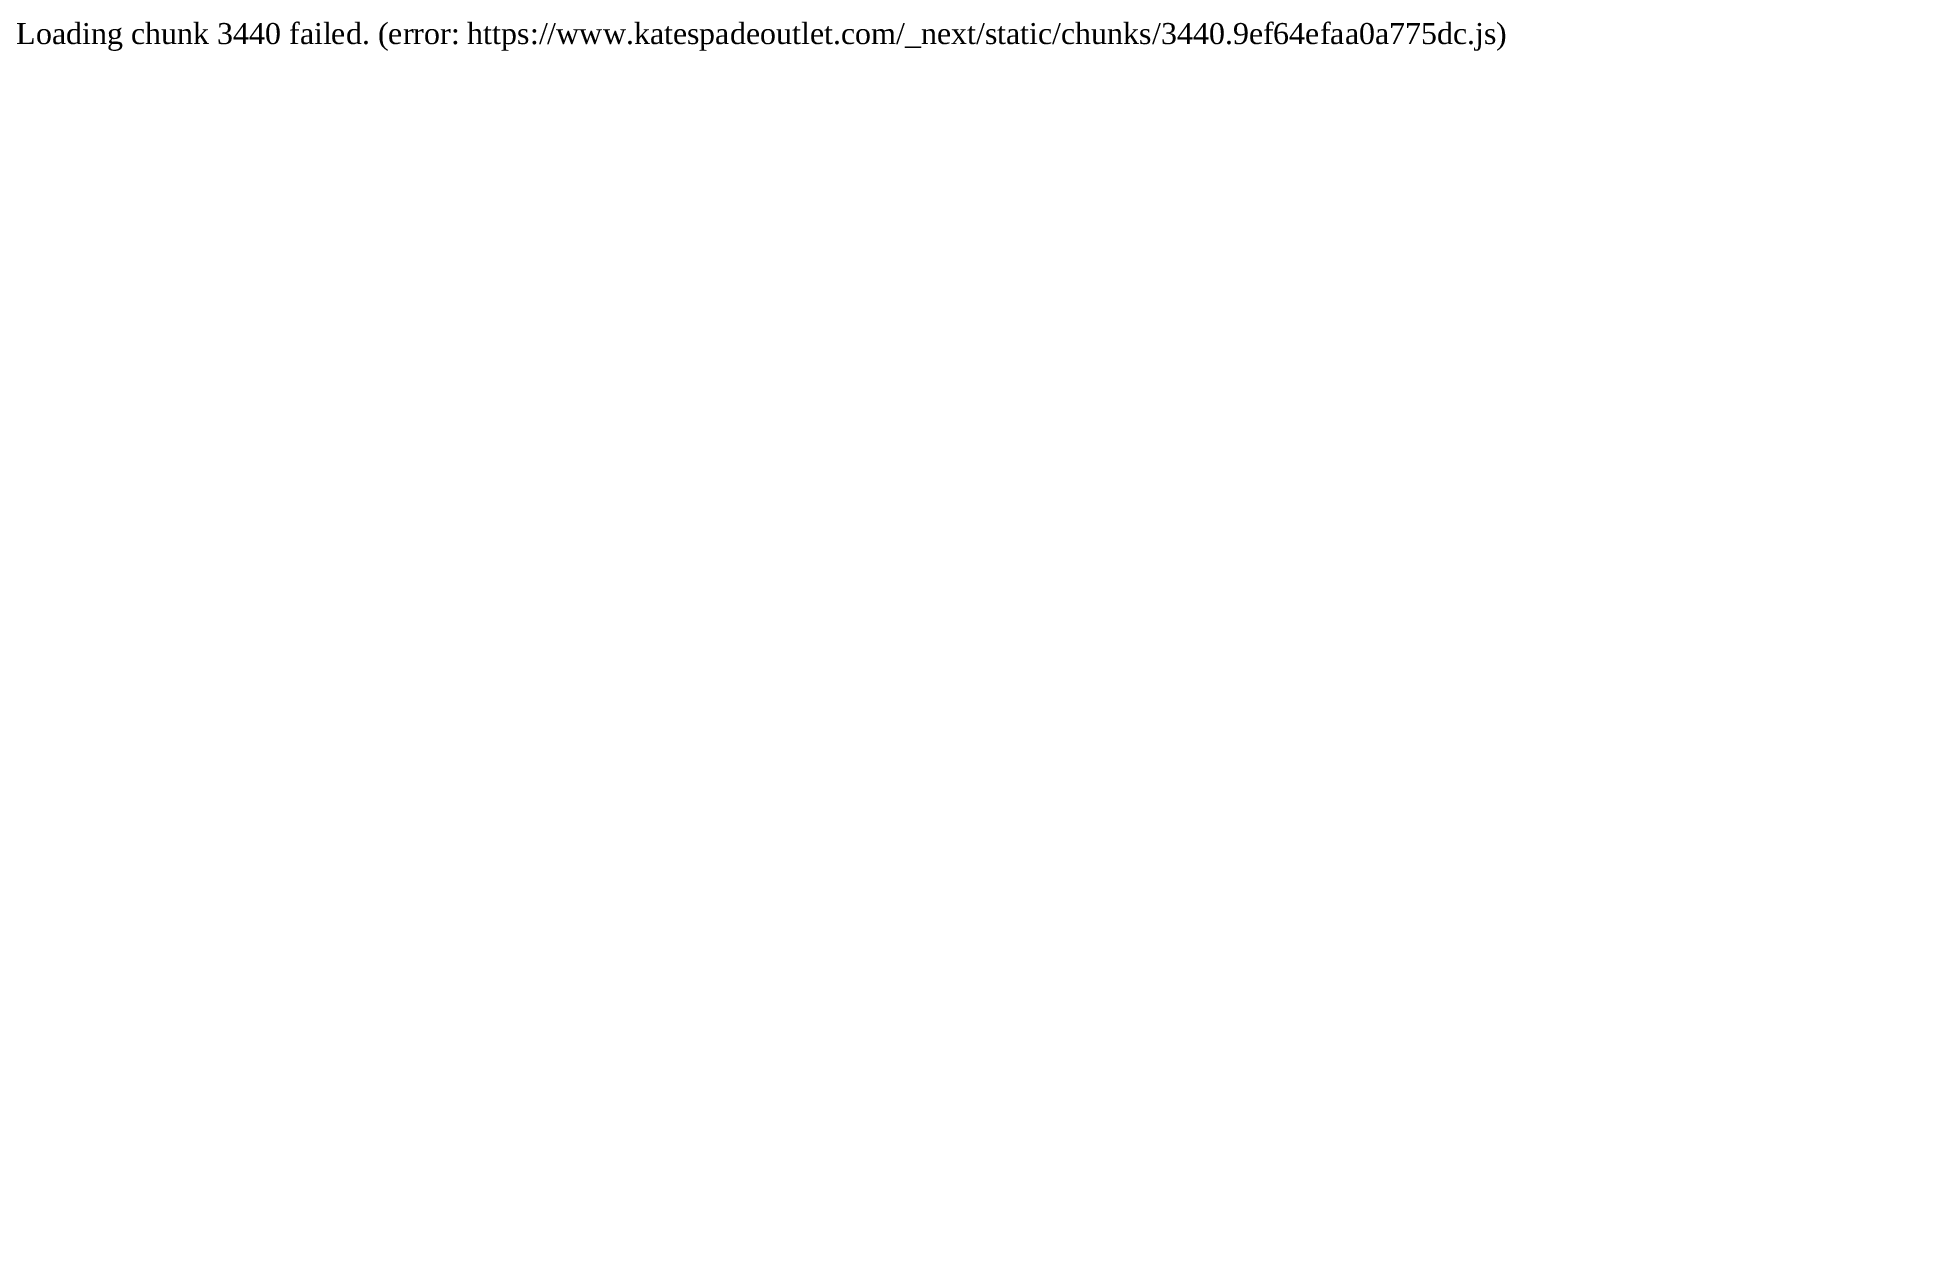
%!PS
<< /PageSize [1953 1263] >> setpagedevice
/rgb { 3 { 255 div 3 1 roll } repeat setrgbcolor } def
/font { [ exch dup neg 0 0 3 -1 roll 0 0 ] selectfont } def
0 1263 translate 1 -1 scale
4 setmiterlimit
255 255 255 rgb
0 0 1953 1263 rectfill
/LiberationSerif-Regular 32 font
0 0 0 rgb
16 44 moveto (Loading chunk 3440 failed. \(error: https://www.katespadeoutlet.com/_next/static/chunks/3440.9ef64efaa0a775dc.js\)) show
showpage
